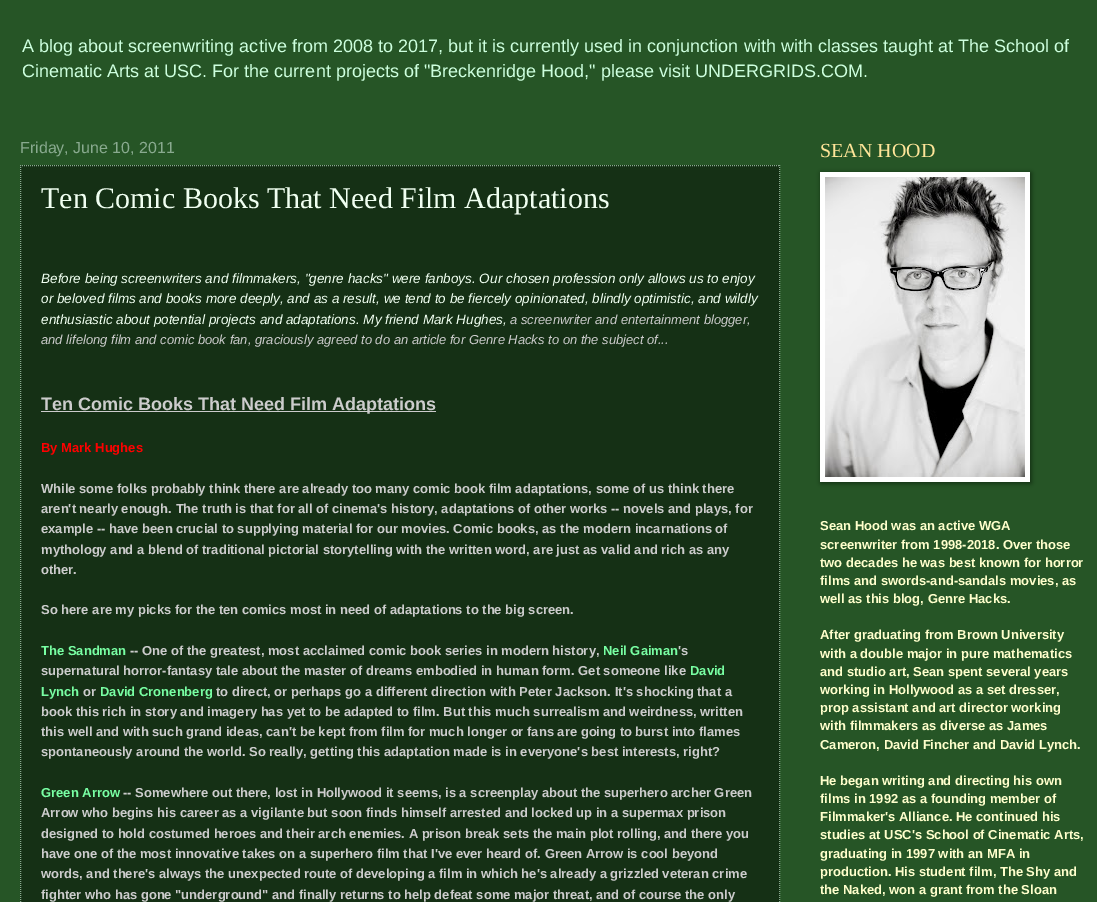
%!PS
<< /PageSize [1097 902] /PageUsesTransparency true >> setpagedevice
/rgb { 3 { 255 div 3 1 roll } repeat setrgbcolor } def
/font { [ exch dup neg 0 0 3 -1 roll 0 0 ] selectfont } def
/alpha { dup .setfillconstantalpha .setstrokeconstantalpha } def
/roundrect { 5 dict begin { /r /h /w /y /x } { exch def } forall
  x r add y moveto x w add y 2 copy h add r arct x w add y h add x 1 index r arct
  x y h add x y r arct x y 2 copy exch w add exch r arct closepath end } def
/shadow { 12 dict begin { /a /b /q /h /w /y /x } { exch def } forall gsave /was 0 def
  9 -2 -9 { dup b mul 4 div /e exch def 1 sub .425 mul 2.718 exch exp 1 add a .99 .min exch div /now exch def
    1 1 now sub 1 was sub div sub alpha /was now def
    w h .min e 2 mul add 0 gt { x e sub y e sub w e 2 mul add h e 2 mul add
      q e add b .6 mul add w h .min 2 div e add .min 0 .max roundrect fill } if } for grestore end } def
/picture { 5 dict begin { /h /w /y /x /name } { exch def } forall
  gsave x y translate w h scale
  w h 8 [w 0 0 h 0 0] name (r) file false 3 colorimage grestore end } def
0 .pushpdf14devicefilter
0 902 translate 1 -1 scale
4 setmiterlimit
38 85 38 rgb
0 0 1097 902 rectfill
21 48 21 rgb
20 165 760 737 rectfill
137 170 143 rgb
[1 1] 0 setdash
20 165.5 moveto 780 165.5 lineto stroke
779.5 165 moveto 779.5 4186 lineto stroke
20.5 165 moveto 20.5 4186 lineto stroke
204 204 204 rgb
41 411 395 1 rectfill
0 0 0 rgb
821 173 210 310 0 2.5 0.5 shadow
255 255 255 rgb
820 172 210 310 rectfill
(img/1.rgb) 825 177 200 300 picture
/LiberationSans-Regular 18.03 font
205 255 222 rgb
22 52 moveto (A blog about screenwriting active from 2008 to 2017, but it is currently used in conjunction with with classes taught at The School of) show
22 77 moveto (Cinematic Arts at USC. For the current projects of "Breckenridge Hood," please visit UNDERGRIDS.COM.) show
/LiberationSans-Regular 16 font
137 170 143 rgb
20 153 moveto (Friday, June 10, 2011) show
/LiberationSerif-Regular 30 font
240 255 241 rgb
41 208 moveto (Ten Comic Books That Need Film Adaptations) show
/LiberationSans-Italic 13.52 font
[
  [(Before being screenwriters and filmmakers, "genre hacks" were fanboys. Our chosen profession only allows us to enjoy) 41 283]
  [(or beloved films and books more deeply, and as a result, we tend to be fiercely opinionated, blindly optimistic, and wildly) 41 303]
  [(enthusiastic about potential projects and adaptations. My friend Mark Hughes,) 41 324]
] { aload pop moveto show } forall
/LiberationSans-Italic 13 font
204 204 204 rgb
510 324 moveto (a screenwriter and entertainment blogger,) show
41 344 moveto (and lifelong film and comic book fan, graciously agreed to do an article for Genre Hacks to on the subject of...) show
/LiberationSans-Bold 18 font
41 410 moveto (Ten Comic Books That Need Film Adaptations) show
/LiberationSans-Bold 13 font
255 0 0 rgb
41 452 moveto (By Mark Hughes) show
204 204 204 rgb
[
  [(While some folks probably think there are already too many comic book film adaptations, some of us think there) 41 493]
  [(aren't nearly enough. The truth is that for all of cinema's history, adaptations of other works -- novels and plays, for) 41 513]
  [(example -- have been crucial to supplying material for our movies. Comic books, as the modern incarnations of) 41 533]
  [(mythology and a blend of traditional pictorial storytelling with the written word, are just as valid and rich as any) 41 554]
  [(other.) 41 574]
  [(So here are my picks for the ten comics most in need of adaptations to the big screen.) 41 614]
] { aload pop moveto show } forall
120 255 163 rgb
41 655 moveto (The Sandman) show
204 204 204 rgb
130 655 moveto (-- One of the greatest, most acclaimed comic book series in modern history,) show
120 255 163 rgb
603 655 moveto (Neil Gaiman) show
204 204 204 rgb
678 655 moveto ('s) show
41 675 moveto (supernatural horror-fantasy tale about the master of dreams embodied in human form. Get someone like) show
120 255 163 rgb
690 675 moveto (David) show
41 696 moveto (Lynch) show
204 204 204 rgb
83 696 moveto (or) show
120 255 163 rgb
100 696 moveto (David Cronenberg) show
204 204 204 rgb
[
  [(to direct, or perhaps go a different direction with Peter Jackson. It's shocking that a) 216 696]
  [(book this rich in story and imagery has yet to be adapted to film. But this much surrealism and weirdness, written) 41 716]
  [(this well and with such grand ideas, can't be kept from film for much longer or fans are going to burst into flames) 41 736]
  [(spontaneously around the world. So really, getting this adaptation made is in everyone's best interests, right?) 41 756]
] { aload pop moveto show } forall
120 255 163 rgb
41 797 moveto (Green Arrow) show
204 204 204 rgb
[
  [(-- Somewhere out there, lost in Hollywood it seems, is a screenplay about the superhero archer Green) 123 797]
  [(Arrow who begins his career as a vigilante but soon finds himself arrested and locked up in a supermax prison) 41 817]
  [(designed to hold costumed heroes and their arch enemies. A prison break sets the main plot rolling, and there you) 41 838]
  [(have one of the most innovative takes on a superhero film that I've ever heard of. Green Arrow is cool beyond) 41 858]
  [(words, and there's always the unexpected route of developing a film in which he's already a grizzled veteran crime) 41 878]
  [(fighter who has gone "underground" and finally returns to help defeat some major threat, and of course the only) 41 899]
] { aload pop moveto show } forall
/LiberationSerif-Regular 20 font
255 229 153 rgb
820 157 moveto (SEAN HOOD) show
/LiberationSans-Bold 13 font
255 255 204 rgb
[
  [(Sean Hood was an active WGA) 820 530]
  [(screenwriter from 1998-2018. Over those) 820 549]
  [(two decades he was best known for horror) 820 567]
  [(films and swords-and-sandals movies, as) 820 585]
  [(well as this blog, Genre Hacks.) 820 603]
  [(After graduating from Brown University) 820 639]
  [(with a double major in pure mathematics) 820 658]
  [(and studio art, Sean spent several years) 820 676]
  [(working in Hollywood as a set dresser,) 820 694]
  [(prop assistant and art director working) 820 712]
  [(with filmmakers as diverse as James) 820 730]
  [(Cameron, David Fincher and David Lynch.) 820 749]
  [(He began writing and directing his own) 820 785]
  [(films in 1992 as a founding member of) 820 803]
  [(Filmmaker's Alliance. He continued his) 820 821]
  [(studies at USC's School of Cinematic Arts,) 820 839]
  [(graduating in 1997 with an MFA in) 820 858]
  [(production. His student film, The Shy and) 820 876]
  [(the Naked, won a grant from the Sloan) 820 894]
] { aload pop moveto show } forall
.poppdf14devicefilter showpage
